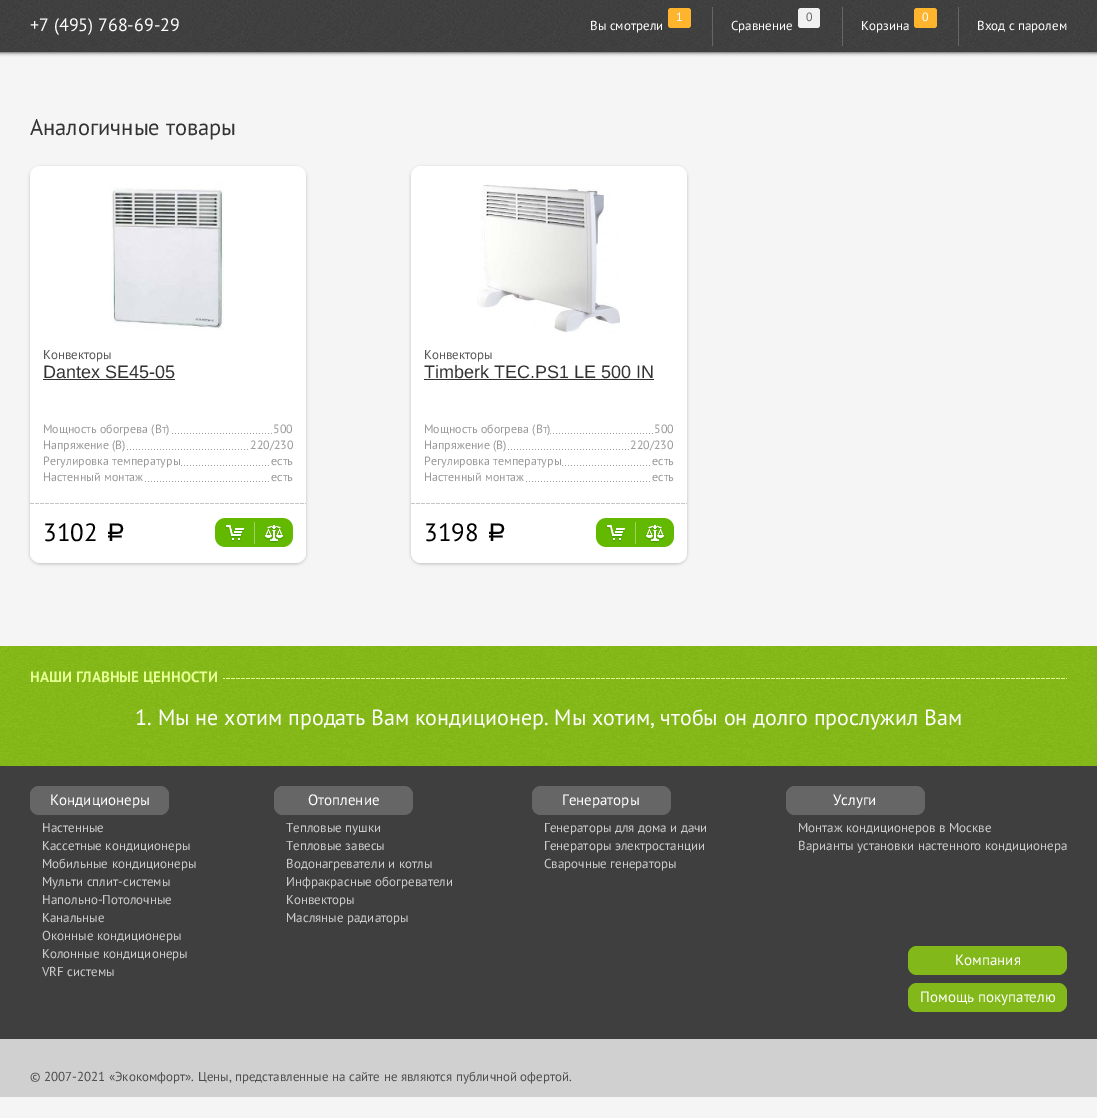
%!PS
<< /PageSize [1097 1118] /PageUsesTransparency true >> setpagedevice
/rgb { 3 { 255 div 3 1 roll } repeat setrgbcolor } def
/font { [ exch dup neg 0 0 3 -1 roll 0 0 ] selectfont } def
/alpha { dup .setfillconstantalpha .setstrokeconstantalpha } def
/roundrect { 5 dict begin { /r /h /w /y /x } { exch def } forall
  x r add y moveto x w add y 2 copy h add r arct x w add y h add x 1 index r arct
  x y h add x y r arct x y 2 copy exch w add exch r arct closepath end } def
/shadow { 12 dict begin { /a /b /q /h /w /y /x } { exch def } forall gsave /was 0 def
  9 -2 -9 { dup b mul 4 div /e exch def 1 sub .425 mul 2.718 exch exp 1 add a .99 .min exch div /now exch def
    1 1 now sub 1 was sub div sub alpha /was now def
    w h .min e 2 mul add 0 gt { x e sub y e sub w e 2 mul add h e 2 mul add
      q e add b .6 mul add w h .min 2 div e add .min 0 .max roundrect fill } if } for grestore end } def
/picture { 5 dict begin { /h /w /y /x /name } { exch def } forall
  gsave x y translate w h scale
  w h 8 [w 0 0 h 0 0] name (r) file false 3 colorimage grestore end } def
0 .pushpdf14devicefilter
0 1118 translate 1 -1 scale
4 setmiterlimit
245 245 245 rgb
0 0 1097 1118 rectfill
0 0 0 rgb
0 0 1097 52 0 2 1 shadow
(img/1.rgb) 0 0 1097 52 picture
255 180 45 rgb
668 8 23 20 3 roundrect fill
102 102 102 rgb
712 7 1 39 rectfill
241 241 241 rgb
798 8 22 20 3 roundrect fill
102 102 102 rgb
842 7 1 39 rectfill
255 180 45 rgb
914 8 23 20 3 roundrect fill
102 102 102 rgb
958 7 1 39 rectfill
gsave
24 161 moveto 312 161 lineto 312 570 lineto 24 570 lineto closepath 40 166 moveto 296 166 lineto 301.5 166 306 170.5 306 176 curveto 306 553 lineto 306 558.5 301.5 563 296 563 curveto 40 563 lineto 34.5 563 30 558.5 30 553 curveto 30 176 lineto 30 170.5 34.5 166 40 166 curveto closepath eoclip newpath
189 189 189 rgb
30 167 276 397 10 1.5 1 shadow
grestore
255 255 255 rgb
30 166 276 397 10 roundrect fill
(img/2.rgb) 111 181 113 150 picture
51 51 51 rgb
43 379 132 1 rectfill
(img/3.rgb) 172 433 100 1 picture
(img/4.rgb) 127 449 121 1 picture
(img/5.rgb) 181 465 88 1 picture
(img/6.rgb) 145 481 124 1 picture
(img/7.rgb) 30 503 276 1 picture
(img/8.rgb) 215 518 78 29 picture
gsave
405 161 moveto 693 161 lineto 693 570 lineto 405 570 lineto closepath 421 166 moveto 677 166 lineto 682.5 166 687 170.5 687 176 curveto 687 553 lineto 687 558.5 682.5 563 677 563 curveto 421 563 lineto 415.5 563 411 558.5 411 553 curveto 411 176 lineto 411 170.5 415.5 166 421 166 curveto closepath eoclip newpath
189 189 189 rgb
411 167 276 397 10 1.5 1 shadow
grestore
255 255 255 rgb
411 166 276 397 10 roundrect fill
(img/9.rgb) 477 184 143 149 picture
51 51 51 rgb
424 379 230 1 rectfill
(img/10.rgb) 550 433 103 1 picture
(img/4.rgb) 508 449 121 1 picture
(img/5.rgb) 562 465 88 1 picture
(img/6.rgb) 526 481 124 1 picture
(img/7.rgb) 411 503 276 1 picture
(img/8.rgb) 596 518 78 29 picture
(img/11.rgb) 0 646 1097 120 picture
(img/12.rgb) 223 678 844 1 picture
(img/13.rgb) 30 668 193 21 picture
63 63 63 rgb
0 766 1097 273 rectfill
102 102 102 rgb
30 786 139 29 9 roundrect fill
274 786 139 29 9 roundrect fill
532 786 139 29 9 roundrect fill
786 786 139 29 9 roundrect fill
130 184 26 rgb
908 946 159 29 9 roundrect fill
908 983 159 29 9 roundrect fill
208 208 208 rgb
0 1039 1097 58 rectfill
/PTSans-Regular 18 font
255 255 255 rgb
30 31 moveto (+7 \(495\) 768-69-29) show
/PTSans-Regular 12 font
676 21 moveto (1) show
/PTSans-Regular 13 font
590 30 moveto (Вы смотрели) show
/PTSans-Regular 12 font
102 102 102 rgb
806 21 moveto (0) show
/PTSans-Regular 13 font
255 255 255 rgb
731 30 moveto (Сравнение) show
/PTSans-Regular 12 font
922 21 moveto (0) show
/PTSans-Regular 13 font
861 30 moveto (Корзина) show
977 30 moveto (Вход с паролем) show
/PTSans-Regular 22.5 font
51 51 51 rgb
30 135 moveto (Аналогичные товары) show
/PTSans-Regular 13 font
87 87 87 rgb
43 359 moveto (Конвекторы) show
/LiberationSans-Regular 18 font
51 51 51 rgb
43 378 moveto (Dantex SE45-05) show
/PTSans-Regular 12 font
153 153 153 rgb
[
  [(Мощность обогрева \(Вт\)) 43 433]
  [(500) 273 433]
  [(Напряжение \(B\)) 43 449]
  [(220/230) 250 449]
  [(Регулировка температуры) 43 465]
  [(есть) 271 465]
  [(Настенный монтаж) 43 481]
  [(есть) 271 481]
] { aload pop moveto show } forall
/PTSans-Regular 25 font
0 0 0 rgb
43 541 moveto (3102) show
/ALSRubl-Regular 25 font
104 541 moveto (a) show
/PTSans-Regular 13 font
87 87 87 rgb
424 359 moveto (Конвекторы) show
/LiberationSans-Regular 18 font
51 51 51 rgb
424 378 moveto (Timberk TEC.PS1 LE 500 IN) show
/PTSans-Regular 12 font
153 153 153 rgb
[
  [(Мощность обогрева \(Вт\)) 424 433]
  [(500) 654 433]
  [(Напряжение \(B\)) 424 449]
  [(220/230) 630 449]
  [(Регулировка температуры) 424 465]
  [(есть) 652 465]
  [(Настенный монтаж) 424 481]
  [(есть) 652 481]
] { aload pop moveto show } forall
/PTSans-Regular 25 font
0 0 0 rgb
424 541 moveto (3198) show
/ALSRubl-Regular 25 font
485 541 moveto (a) show
/PTSans-Bold 15 font
229 255 149 rgb
30 682 moveto (НАШИ ГЛАВНЫЕ ЦЕННОСТИ) show
/PTSans-Regular 22 font
255 255 255 rgb
135 725 moveto (1. Мы не хотим продать Вам кондиционер. Мы хотим, чтобы он долго прослужил Вам) show
/PTSans-Regular 15 font
50 805 moveto (Кондиционеры) show
/PTSans-Regular 13 font
204 204 204 rgb
[
  [(Настенные) 42 832]
  [(Кассетные кондиционеры) 42 850]
  [(Мобильные кондиционеры) 42 868]
  [(Мульти сплит-системы) 42 886]
  [(Напольно-Потолочные) 42 904]
  [(Канальные) 42 922]
  [(Оконные кондиционеры) 42 940]
  [(Колонные кондиционеры) 42 958]
  [(VRF системы) 42 976]
] { aload pop moveto show } forall
/PTSans-Regular 15 font
255 255 255 rgb
308 805 moveto (Отопление) show
/PTSans-Regular 13 font
204 204 204 rgb
[
  [(Тепловые пушки) 286 832]
  [(Тепловые завесы) 286 850]
  [(Водонагреватели и котлы) 286 868]
  [(Инфракрасные обогреватели) 286 886]
  [(Конвекторы) 286 904]
  [(Масляные радиаторы) 286 922]
] { aload pop moveto show } forall
/PTSans-Regular 15 font
255 255 255 rgb
562 805 moveto (Генераторы) show
/PTSans-Regular 13 font
204 204 204 rgb
[
  [(Генераторы для дома и дачи) 544 832]
  [(Генераторы электростанции) 544 850]
  [(Сварочные генераторы) 544 868]
] { aload pop moveto show } forall
/PTSans-Regular 15 font
255 255 255 rgb
833 805 moveto (Услуги) show
/PTSans-Regular 13 font
204 204 204 rgb
798 832 moveto (Монтаж кондиционеров в Москве) show
798 850 moveto (Варианты установки настенного кондиционера) show
/PTSans-Regular 15 font
255 255 255 rgb
955 965 moveto (Компания) show
920 1002 moveto (Помощь покупателю) show
/PTSans-Regular 13 font
78 78 78 rgb
30 1081 moveto (© 2007-2021 «Экокомфорт». Цены, представленные на сайте не являются публичной офертой.) show
.poppdf14devicefilter showpage
